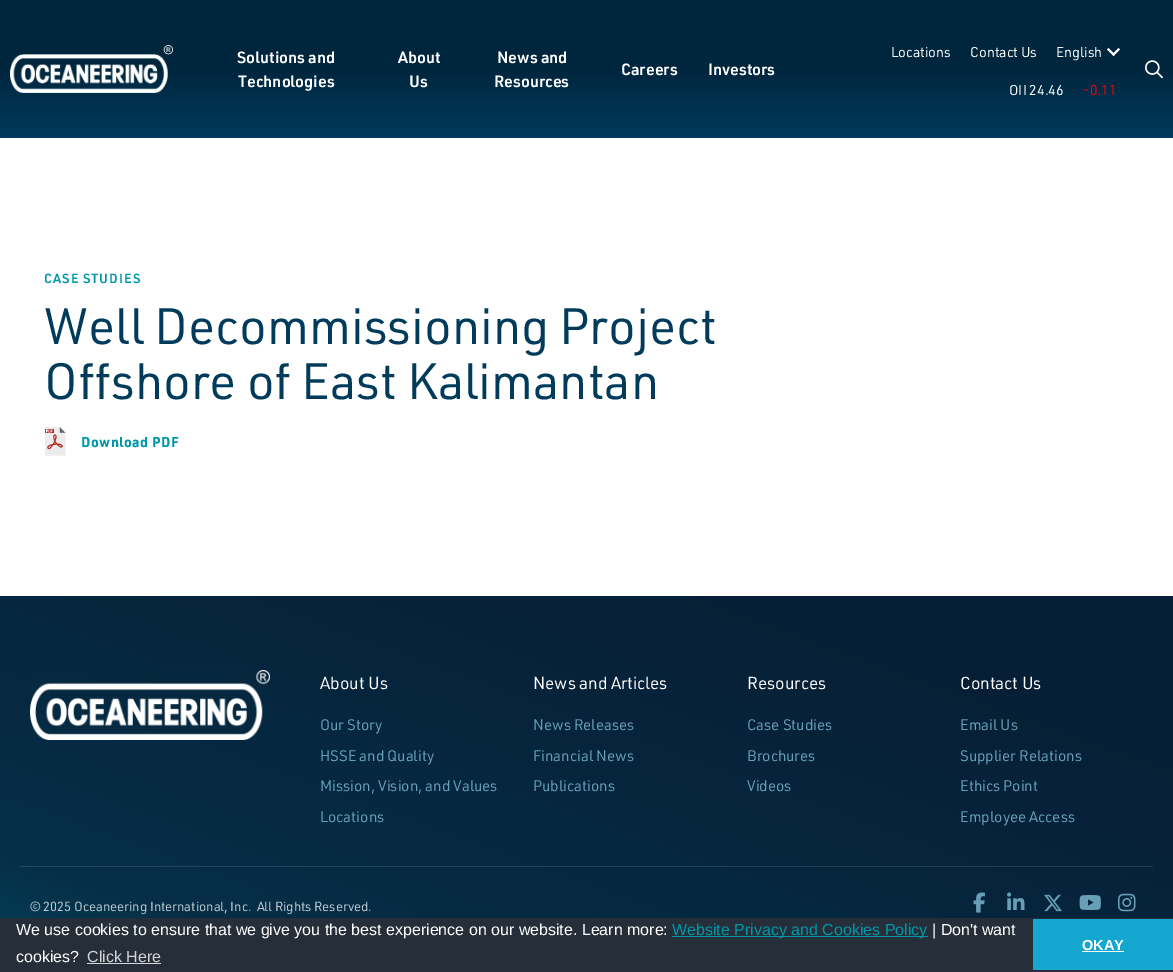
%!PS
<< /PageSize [1173 972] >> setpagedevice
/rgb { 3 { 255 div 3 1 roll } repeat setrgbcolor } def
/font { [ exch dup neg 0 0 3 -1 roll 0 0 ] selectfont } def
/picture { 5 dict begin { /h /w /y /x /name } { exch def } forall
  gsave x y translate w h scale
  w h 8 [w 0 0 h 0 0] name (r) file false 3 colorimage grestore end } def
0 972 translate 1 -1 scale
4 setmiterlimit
255 255 255 rgb
0 0 1173 972 rectfill
gsave 0 0 moveto 1173 0 lineto 1173 138 lineto 0 138 lineto closepath clip newpath
<< /ShadingType 2 /ColorSpace /DeviceRGB /Coords [587 0 587 138] /Extend [true true] /Function << /FunctionType 3 /Domain [0 1] /Functions [<< /FunctionType 2 /Domain [0 1] /C0 [0 0.149 0.243] /C1 [0 0.149 0.243] /N 1 >> << /FunctionType 2 /Domain [0 1] /C0 [0 0.149 0.243] /C1 [0 0.231 0.361] /N 1 >>] /Bounds [0.5] /Encode [0 1 0 1] >> >> shfill grestore
(img/1.rgb) 10 45 163 48 picture
1118.5 48 moveto 1120 49.5 lineto 1113.5 56 lineto 1112 54.5 lineto closepath fill
1108.5 48 moveto 1115 54.5 lineto 1113.5 56 lineto 1107 49.5 lineto closepath fill
(img/2.rgb) 1145 60 18 19 picture
(img/3.rgb) 45 427 21 29 picture
gsave 0 596 moveto 1173 596 lineto 1173 918 lineto 0 918 lineto closepath clip newpath
<< /ShadingType 2 /ColorSpace /DeviceRGB /Coords [723 432 422 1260] /Extend [true true] /Function << /FunctionType 3 /Domain [0 1] /Functions [<< /FunctionType 2 /Domain [0 1] /C0 [0.024 0.122 0.212] /C1 [0.024 0.122 0.212] /N 1 >> << /FunctionType 2 /Domain [0 1] /C0 [0.024 0.122 0.212] /C1 [0.02 0.184 0.278] /N 1 >> << /FunctionType 2 /Domain [0 1] /C0 [0.02 0.184 0.278] /C1 [0.008 0.349 0.459] /N 1 >>] /Bounds [0.18 0.73] /Encode [0 1 0 1 0 1] >> >> shfill grestore
gsave 20 866 moveto 1153 866 lineto 1153 867 lineto 20 867 lineto closepath clip newpath
<< /ShadingType 2 /ColorSpace /DeviceRGB /Coords [723 432 422 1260] /Extend [true true] /Function << /FunctionType 3 /Domain [0 1] /Functions [<< /FunctionType 2 /Domain [0 1] /C0 [0.122 0.224 0.318] /C1 [0.122 0.224 0.318] /N 1 >> << /FunctionType 2 /Domain [0 1] /C0 [0.122 0.224 0.318] /C1 [0.118 0.275 0.369] /N 1 >> << /FunctionType 2 /Domain [0 1] /C0 [0.118 0.275 0.369] /C1 [0.11 0.408 0.514] /N 1 >>] /Bounds [0.18 0.73] /Encode [0 1 0 1 0 1] >> >> shfill grestore
(img/4.rgb) 30 670 240 70 picture
(img/5.rgb) 973 892 12 21 picture
(img/6.rgb) 1007 892 18 18 picture
(img/7.rgb) 1044 894 18 18 picture
(img/8.rgb) 1079 895 22 15 picture
(img/9.rgb) 1118 893 18 19 picture
[
  [0 918 1173 54 37 46 57]
  [672 936 256 1 0 151 169]
  [87 963 74 1 211 213 215]
  [1033 919 140 51 20 167 208]
  [1082 951 42 1 255 255 255]
] { aload pop rgb rectfill } forall
/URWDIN-SemiBold 16 font
[
  [(Solutions and) 237 63]
  [(Technologies) 238 87]
  [(About) 398 63]
  [(Us) 409 87]
  [(News and) 497 63]
  [(Resources) 494 87]
  [(Careers) 621 75]
  [(Investors) 708 75]
] { aload pop moveto show } forall
/URWDIN-Regular 14 font
[
  [(Locations) 891 57]
  [(Contact Us) 970 57]
  [(English) 1056 57]
  [(OII 24.46) 1009 95]
] { aload pop moveto show } forall
255 0 0 rgb
1083 95 moveto (-0.11) show
/URWDIN-SemiBold 13 font
0 151 169 rgb
44 283 moveto 1 0 (CASE STUDIES) ashow
/URWDIN-Regular 50 font
0 59 92 rgb
44 344 moveto (Well Decommissioning Project) show
44 399 moveto (Offshore of East Kalimantan) show
/URWDIN-Bold 14 font
0 151 169 rgb
81 447 moveto 0.5 0 (Download PDF) ashow
/URWDIN-Regular 17 font
255 255 255 rgb
320 689 moveto (About Us) show
/URWDIN-Regular 15 font
103 159 183 rgb
[
  [(Our Story) 320 730]
  [(HSSE and Quality) 320 761]
  [(Mission, Vision, and Values) 320 791]
  [(Locations) 320 822]
] { aload pop moveto show } forall
/URWDIN-Regular 17 font
255 255 255 rgb
533 689 moveto (News and Articles) show
/URWDIN-Regular 15 font
103 159 183 rgb
[
  [(News Releases) 533 730]
  [(Financial News) 533 761]
  [(Publications) 533 791]
] { aload pop moveto show } forall
/URWDIN-Regular 17 font
255 255 255 rgb
747 689 moveto (Resources) show
/URWDIN-Regular 15 font
103 159 183 rgb
[
  [(Case Studies) 747 730]
  [(Brochures) 747 761]
  [(Videos) 747 791]
] { aload pop moveto show } forall
/URWDIN-Regular 17 font
255 255 255 rgb
960 689 moveto (Contact Us) show
/URWDIN-Regular 15 font
103 159 183 rgb
[
  [(Email Us) 960 730]
  [(Supplier Relations) 960 761]
  [(Ethics Point) 960 791]
  [(Employee Access) 960 822]
] { aload pop moveto show } forall
/URWDIN-Regular 13 font
192 203 209 rgb
30 911 moveto (© 2025 Oceaneering International, Inc.  All Rights Reserved.) show
/LiberationSans-Regular 16 font
255 255 255 rgb
16 935 moveto (We use cookies to ensure that we give you the best experience on our website. Learn more:) show
0 151 169 rgb
672 935 moveto (Website Privacy and Cookies Policy) show
255 255 255 rgb
932 935 moveto (| Don't want) show
16 962 moveto (cookies?) show
211 213 215 rgb
87 962 moveto (Click Here) show
/LiberationSans-Bold 14.5 font
255 255 255 rgb
1082 950 moveto (OKAY) show
showpage
